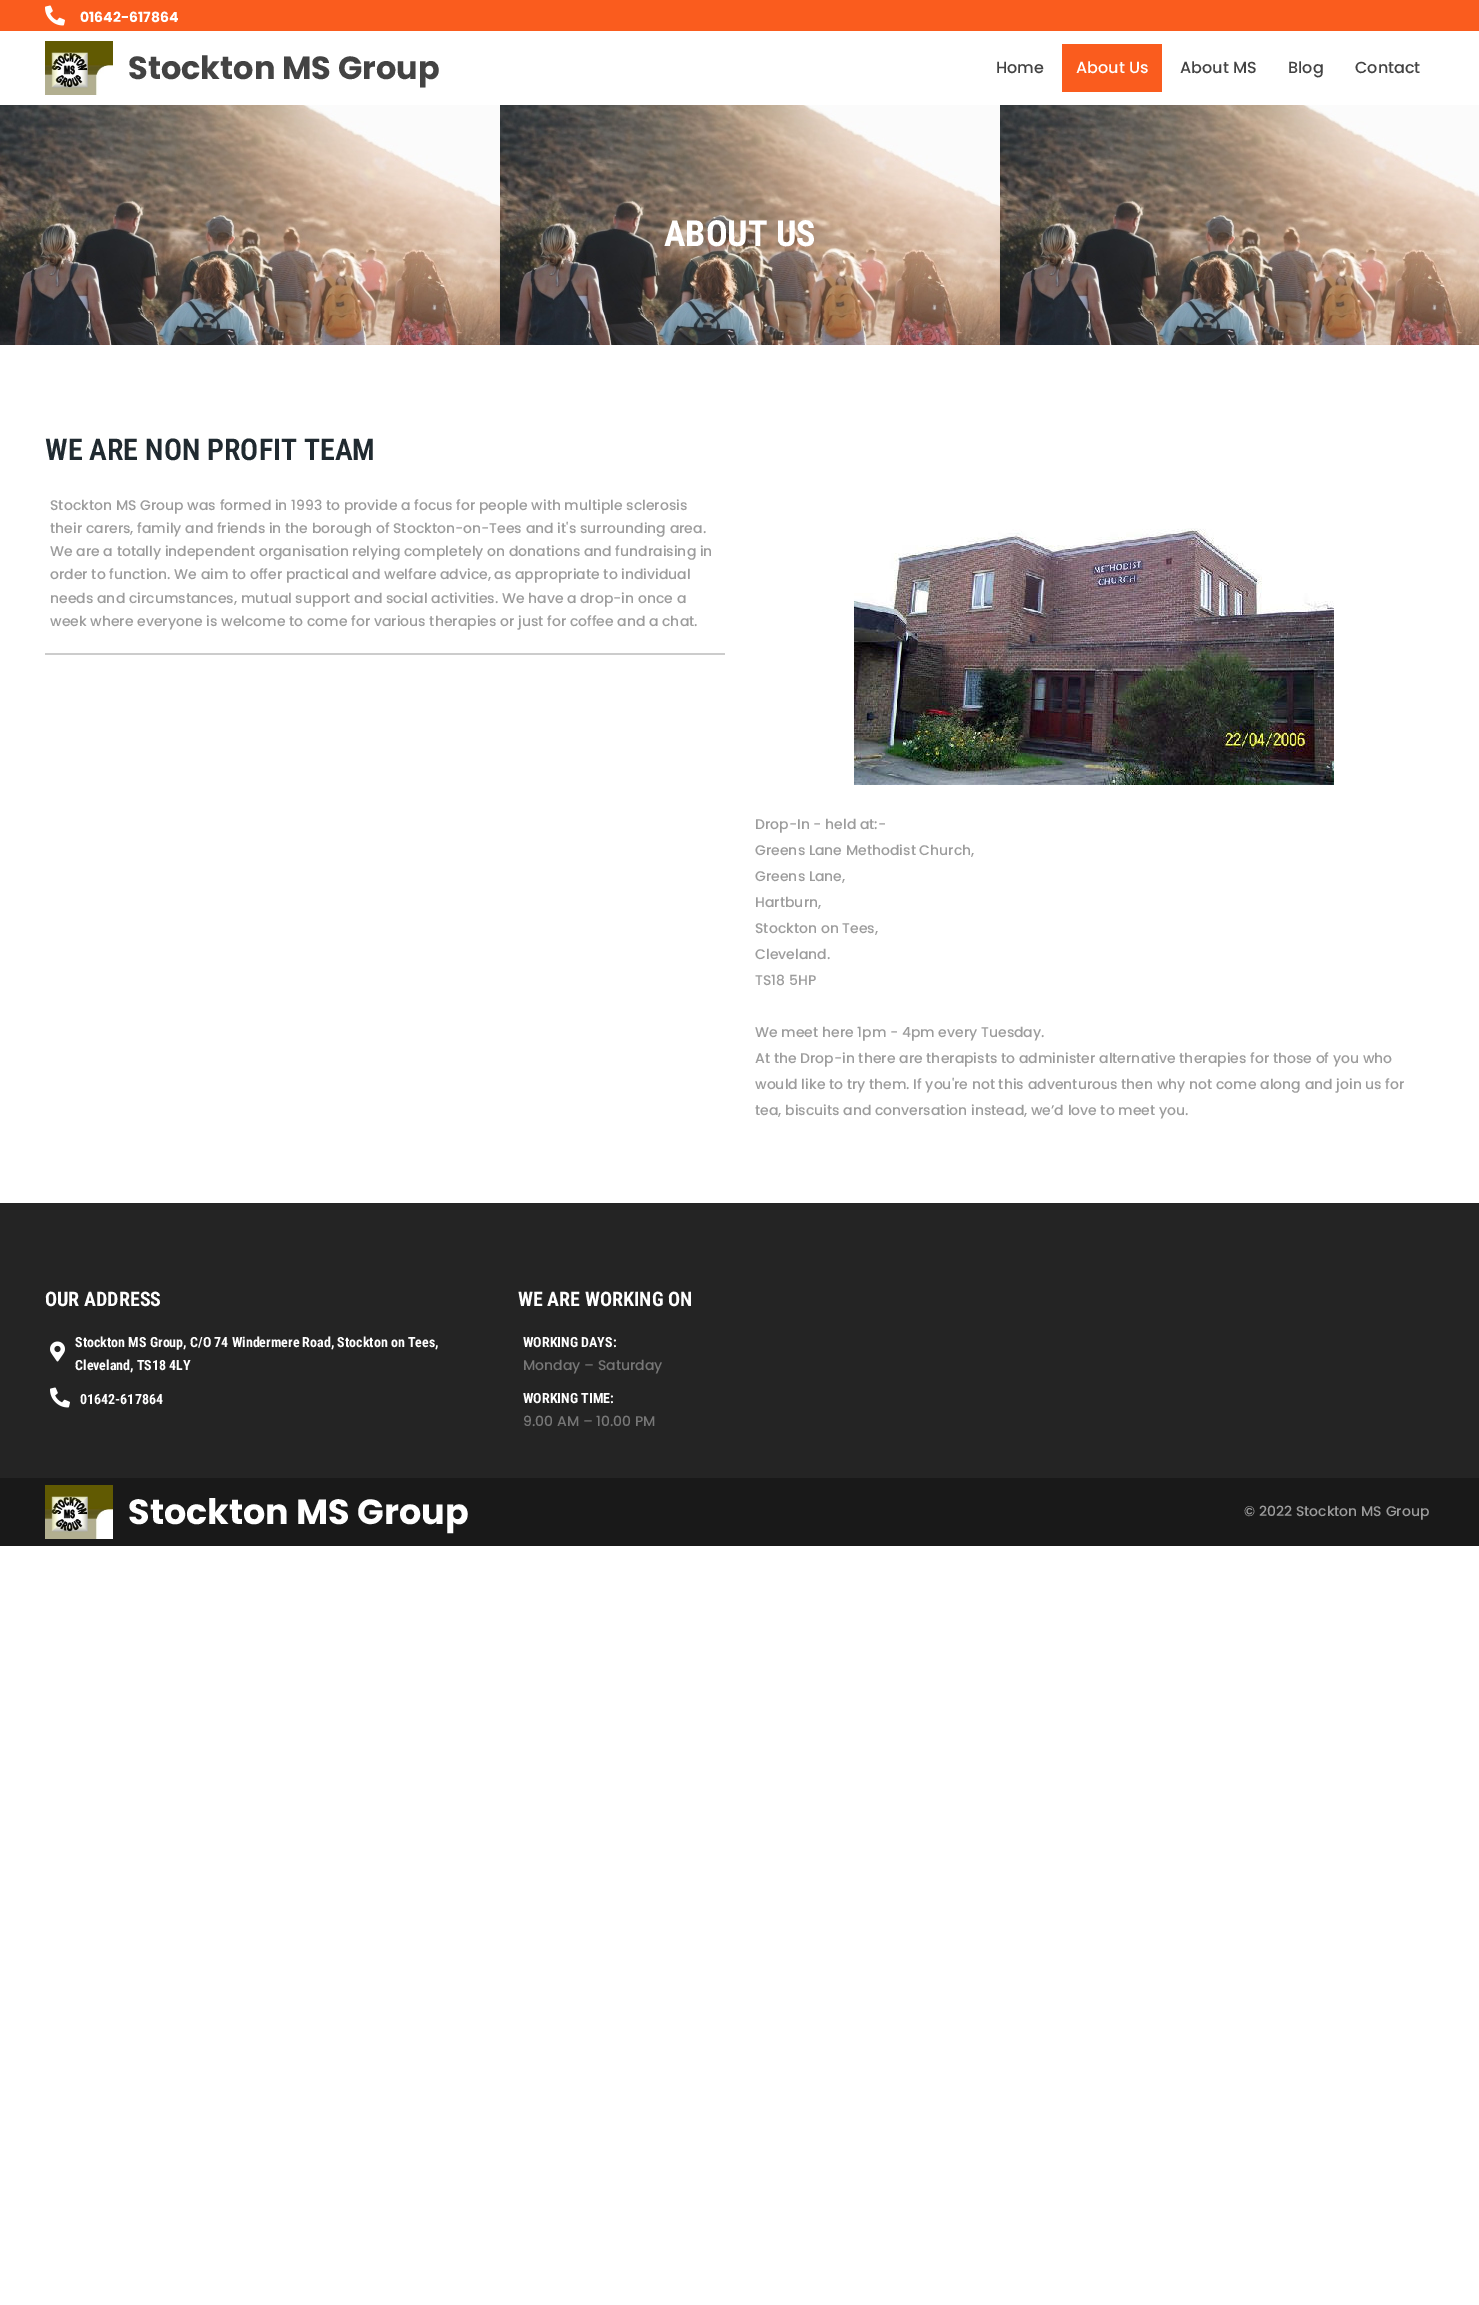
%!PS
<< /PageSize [1479 2305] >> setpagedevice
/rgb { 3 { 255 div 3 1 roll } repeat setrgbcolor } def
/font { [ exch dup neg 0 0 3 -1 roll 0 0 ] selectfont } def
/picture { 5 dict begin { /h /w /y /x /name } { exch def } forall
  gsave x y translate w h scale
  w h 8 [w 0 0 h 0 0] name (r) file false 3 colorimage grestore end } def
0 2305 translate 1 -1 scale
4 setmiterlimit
255 255 255 rgb
0 0 1479 2305 rectfill
250 92 30 rgb
0 0 1479 31 rectfill
(img/1.rgb) 45 5 20 21 picture
(img/2.rgb) 45 41 68 54 picture
1062 44 100 48 rectfill
(img/3.rgb) 0 105 1479 240 picture
204 204 204 rgb
45 653 680 2 rectfill
(img/4.rgb) 854 528 480 257 picture
36 36 36 rgb
0 1203 1479 275 rectfill
(img/5.rgb) 50 1341 15 21 picture
(img/6.rgb) 50 1387 20 21 picture
25 25 25 rgb
0 1478 1479 68 rectfill
(img/2.rgb) 45 1485 68 54 picture
/Poppins-Bold 14 font
255 255 255 rgb
80 22 moveto (01642-617864) show
/Poppins-Bold 32 font
67 67 67 rgb
128 79 moveto (Stockton MS Group) show
/Poppins-Medium 16 font
996 73 moveto (Home) show
255 255 255 rgb
1076 73 moveto (About Us) show
67 67 67 rgb
[
  [(About MS) 1180 73]
  [(Blog) 1288 73]
  [(Contact) 1355 73]
] { aload pop moveto show } forall
/RobotoCondensed-Bold 36 font
255 255 255 rgb
664 246 moveto (ABOUT US) show
/RobotoCondensed-SemiBold 30 font
32 42 48 rgb
45 460 moveto (WE ARE NON PROFIT TEAM) show
/Poppins-Medium 14 font
156 156 156 rgb
[
  [(Stockton MS Group was formed in 1993 to provide a focus for people with multiple sclerosis) 50 510]
  [(their carers, family and friends in the borough of Stockton-on-Tees and it's surrounding area.) 50 533]
  [(We are a totally independent organisation relying completely on donations and fundraising in) 50 556]
  [(order to function. We aim to offer practical and welfare advice, as appropriate to individual) 50 579]
  [(needs and circumstances, mutual support and social activities. We have a drop-in once a) 50 603]
  [(week where everyone is welcome to come for various therapies or just for coffee and a chat.) 50 626]
  [(Drop-In - held at:-) 755 829]
  [(Greens Lane Methodist Church,) 755 855]
  [(Greens Lane,) 755 881]
  [(Hartburn,) 755 907]
  [(Stockton on Tees,) 755 933]
  [(Cleveland.) 755 959]
  [(TS18 5HP) 755 985]
  [(We meet here 1pm - 4pm every Tuesday.) 755 1037]
  [(At the Drop-in there are therapists to administer alternative therapies for those of you who) 755 1063]
  [(would like to try them. If you're not this adventurous then why not come along and join us for) 755 1089]
  [(tea, biscuits and conversation instead, we’d love to meet you.) 755 1115]
] { aload pop moveto show } forall
/RobotoCondensed-Bold 20 font
255 255 255 rgb
45 1306 moveto (OUR ADDRESS) show
/RobotoCondensed-Bold 14 font
[
  [(Stockton MS Group, C/O 74 Windermere Road, Stockton on Tees,) 75 1347]
  [(Cleveland, TS18 4LY) 75 1370]
  [(01642-617864) 80 1404]
] { aload pop moveto show } forall
/RobotoCondensed-Bold 20 font
518 1306 moveto (WE ARE WORKING ON) show
/RobotoCondensed-Bold 14 font
523 1347 moveto (WORKING DAYS:) show
/Poppins-Medium 14 font
119 119 119 rgb
523 1370 moveto (Monday – Saturday) show
/RobotoCondensed-Bold 14 font
255 255 255 rgb
523 1403 moveto (WORKING TIME:) show
/Poppins-Medium 14 font
119 119 119 rgb
523 1426 moveto (9.00 AM – 10.00 PM) show
/Poppins-Bold 35 font
255 255 255 rgb
128 1524 moveto (Stockton MS Group) show
/Poppins-Medium 14 font
156 156 156 rgb
1244 1516 moveto (© 2022 Stockton MS Group) show
showpage
